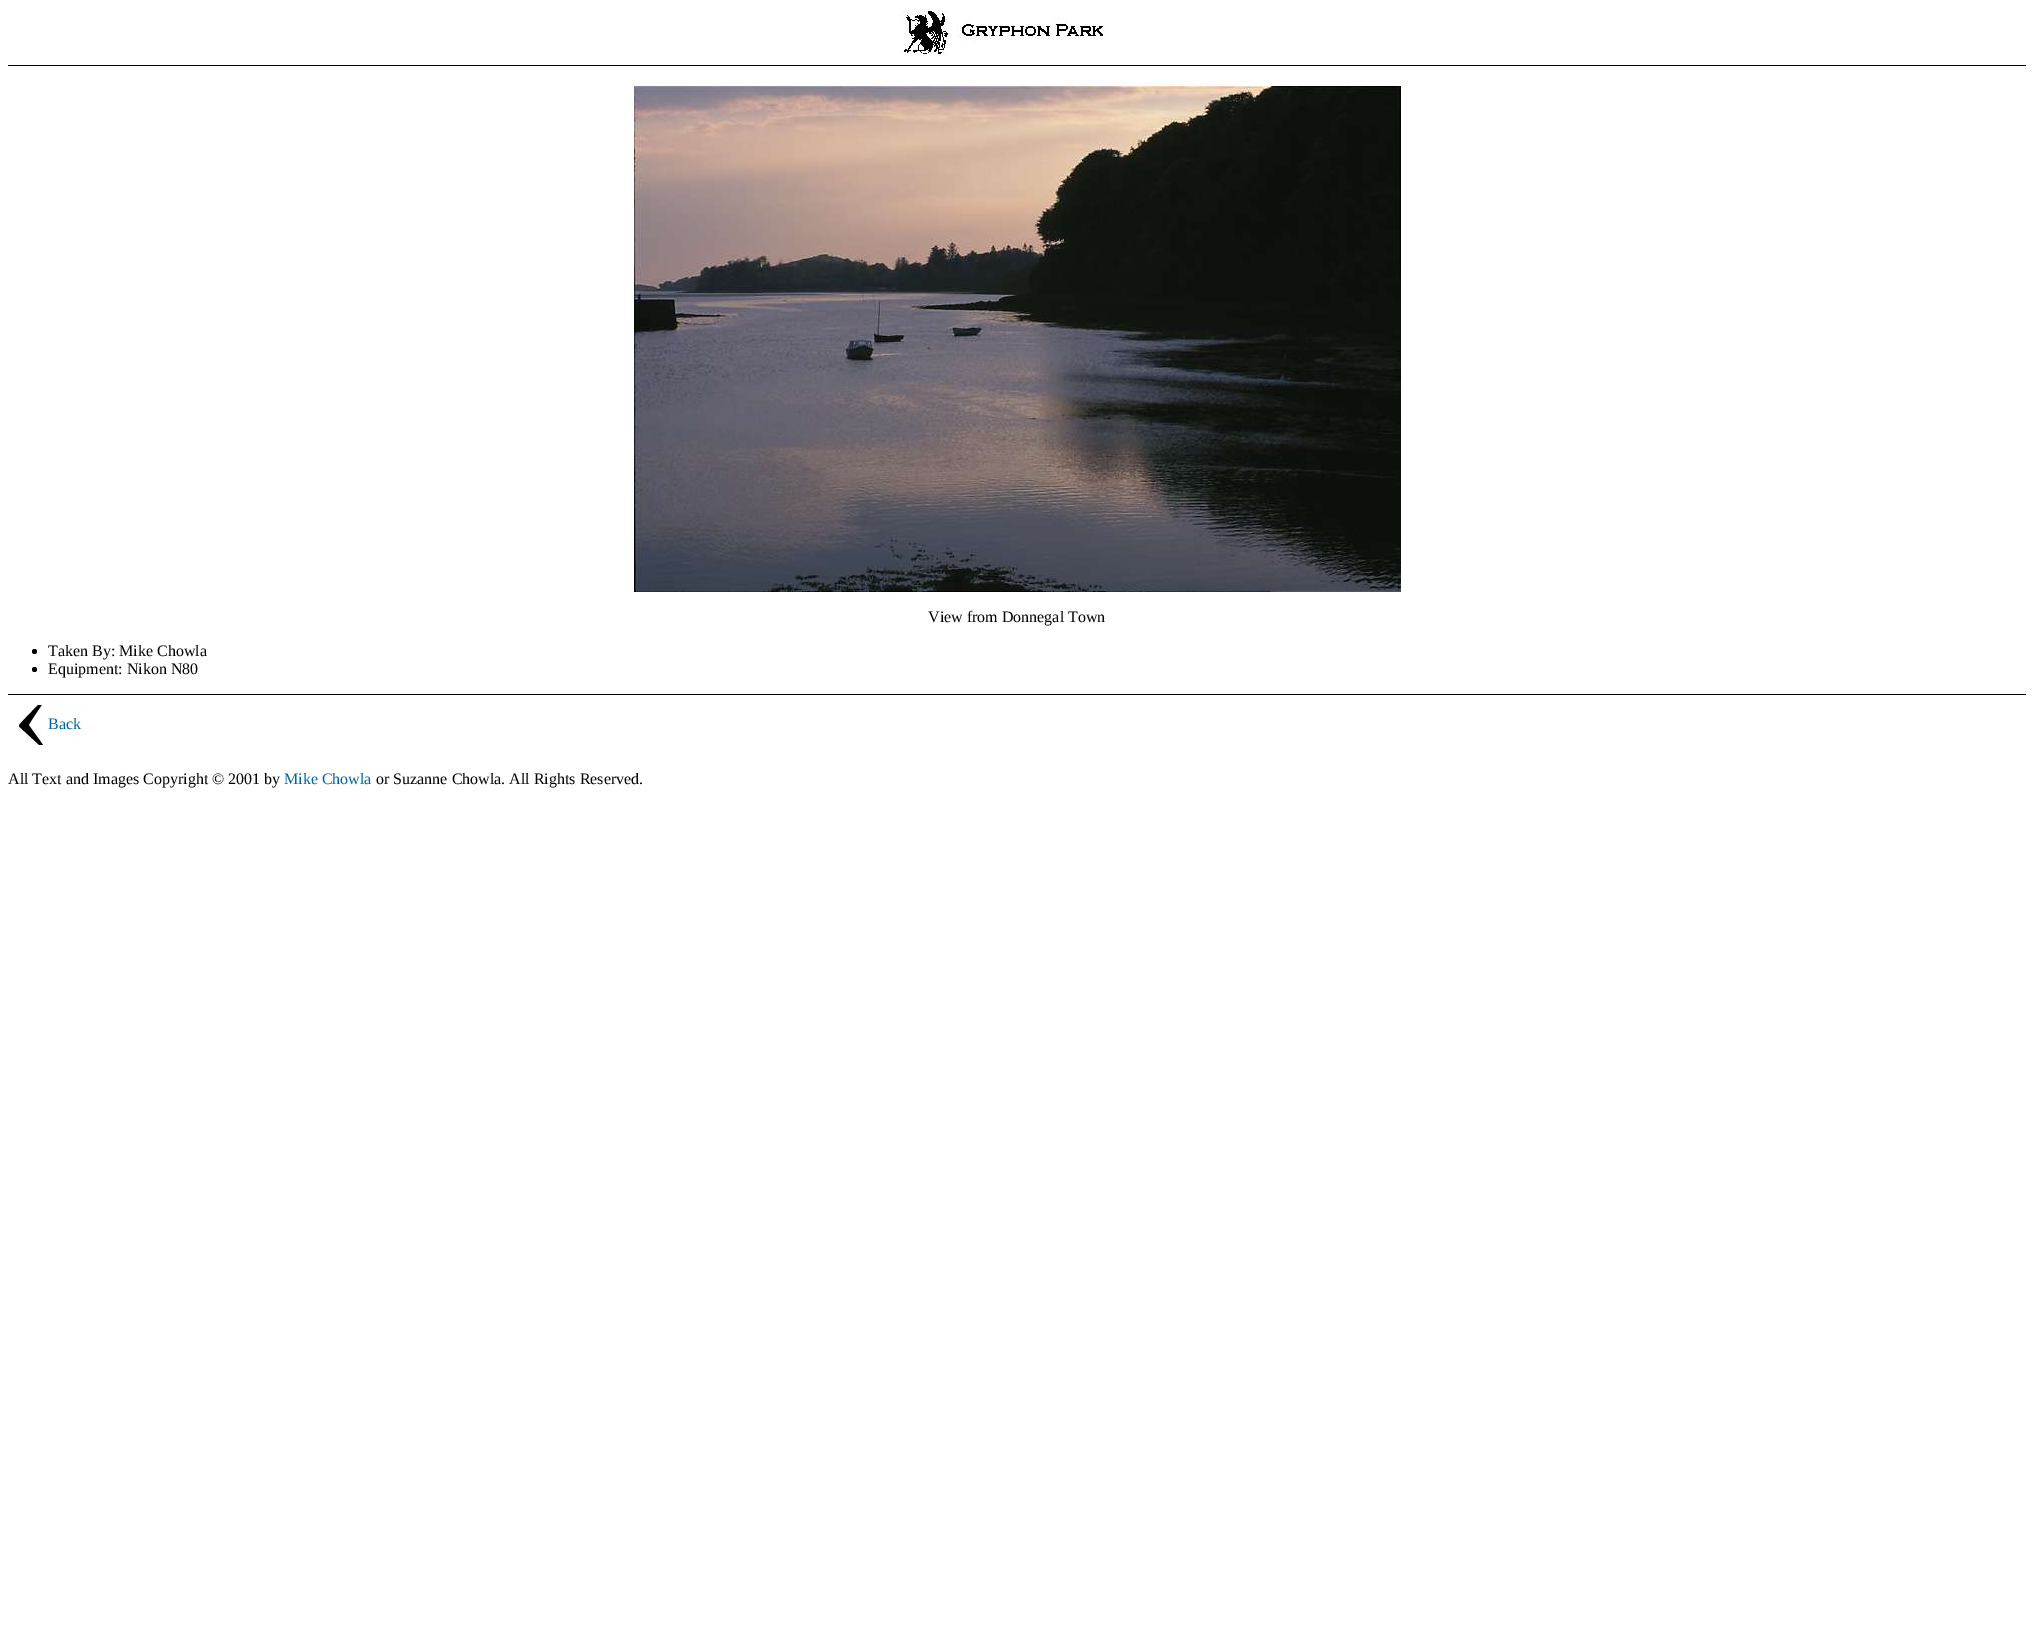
%!PS
<< /PageSize [2034 1629] >> setpagedevice
/rgb { 3 { 255 div 3 1 roll } repeat setrgbcolor } def
/font { [ exch dup neg 0 0 3 -1 roll 0 0 ] selectfont } def
/circle { newpath 0 360 arc closepath } def
/picture { 5 dict begin { /h /w /y /x /name } { exch def } forall
  gsave x y translate w h scale
  w h 8 [w 0 0 h 0 0] name (r) file false 3 colorimage grestore end } def
0 1629 translate 1 -1 scale
4 setmiterlimit
255 255 255 rgb
0 0 2034 1629 rectfill
0 0 0 rgb
8 65 2018 1 rectfill
(img/1.rgb) 900 9 208 48 picture
(img/2.rgb) 634 86 767 506 picture
34.5 651.5 2.5 circle fill
34.5 669.5 2.5 circle fill
8 694 2018 1 rectfill
(img/3.rgb) 19 705 24 40 picture
/LiberationSerif-Regular 16 font
[
  [(View from Donnegal Town) 928 622]
  [(Taken By: Mike Chowla) 48 656]
  [(Equipment: Nikon N80) 48 674]
] { aload pop moveto show } forall
0 102 153 rgb
48 729 moveto (Back) show
0 0 0 rgb
8 784 moveto (All Text and Images Copyright © 2001 by) show
0 102 153 rgb
284 784 moveto (Mike Chowla) show
0 0 0 rgb
376 784 moveto (or Suzanne Chowla. All Rights Reserved.) show
showpage
